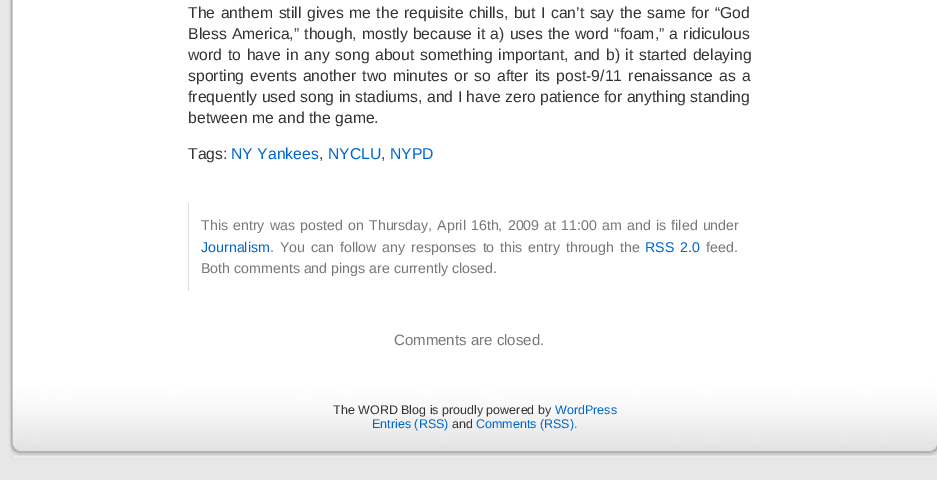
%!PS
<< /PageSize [937 480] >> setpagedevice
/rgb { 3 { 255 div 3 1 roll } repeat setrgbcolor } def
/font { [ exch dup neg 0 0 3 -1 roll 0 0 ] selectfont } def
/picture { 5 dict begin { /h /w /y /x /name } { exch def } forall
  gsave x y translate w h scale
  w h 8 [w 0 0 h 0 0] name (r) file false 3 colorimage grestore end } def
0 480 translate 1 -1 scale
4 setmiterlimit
231 231 231 rgb
0 0 937 480 rectfill
(img/1.rgb) 9 0 928 457 picture
221 221 221 rgb
188 203 1 88 rectfill
(img/2.rgb) 9 379 928 77 picture
/LiberationSans-Regular 15.75 font
51 51 51 rgb
188 18 moveto 1.1 0 32 (The anthem still gives me the requisite chills, but I can’t say the same for “God) widthshow
188 39 moveto 0.8 0 32 (Bless America,” though, mostly because it a\) uses the word “foam,” a ridiculous) widthshow
188 60 moveto 1.25 0 32 (word to have in any song about something important, and b\) it started delaying) widthshow
188 81 moveto 1.75 0 32 (sporting events another two minutes or so after its post-9/11 renaissance as a) widthshow
[
  [(frequently used song in stadiums, and I have zero patience for anything standing) 188 102]
  [(between me and the game.) 188 123]
  [(Tags:) 188 159]
] { aload pop moveto show } forall
0 102 204 rgb
231 159 moveto (NY Yankees) show
51 51 51 rgb
319 159 moveto (,) show
0 102 204 rgb
328 159 moveto (NYCLU) show
51 51 51 rgb
381 159 moveto (,) show
0 102 204 rgb
390 159 moveto (NYPD) show
/LiberationSans-Regular 14.2 font
119 119 119 rgb
201 230 moveto 1.25 0 32 (This entry was posted on Thursday, April 16th, 2009 at 11:00 am and is filed under) widthshow
0 102 204 rgb
201 252 moveto (Journalism) show
119 119 119 rgb
270 252 moveto (.) show
280 252 moveto 2 0 32 (You can follow any responses to this entry through the) widthshow
0 102 204 rgb
645 252 moveto 2 0 32 (RSS 2.0) widthshow
119 119 119 rgb
706 252 moveto (feed.) show
201 273 moveto (Both comments and pings are currently closed.) show
/LiberationSans-Regular 15 font
394 345 moveto (Comments are closed.) show
/LiberationSans-Regular 12.5 font
51 51 51 rgb
333 414 moveto (The WORD Blog is proudly powered by) show
0 102 204 rgb
555 414 moveto (WordPress) show
372 428 moveto (Entries \(RSS\)) show
51 51 51 rgb
452 428 moveto (and) show
0 102 204 rgb
476 428 moveto (Comments \(RSS\)) show
51 51 51 rgb
574 428 moveto (.) show
showpage
